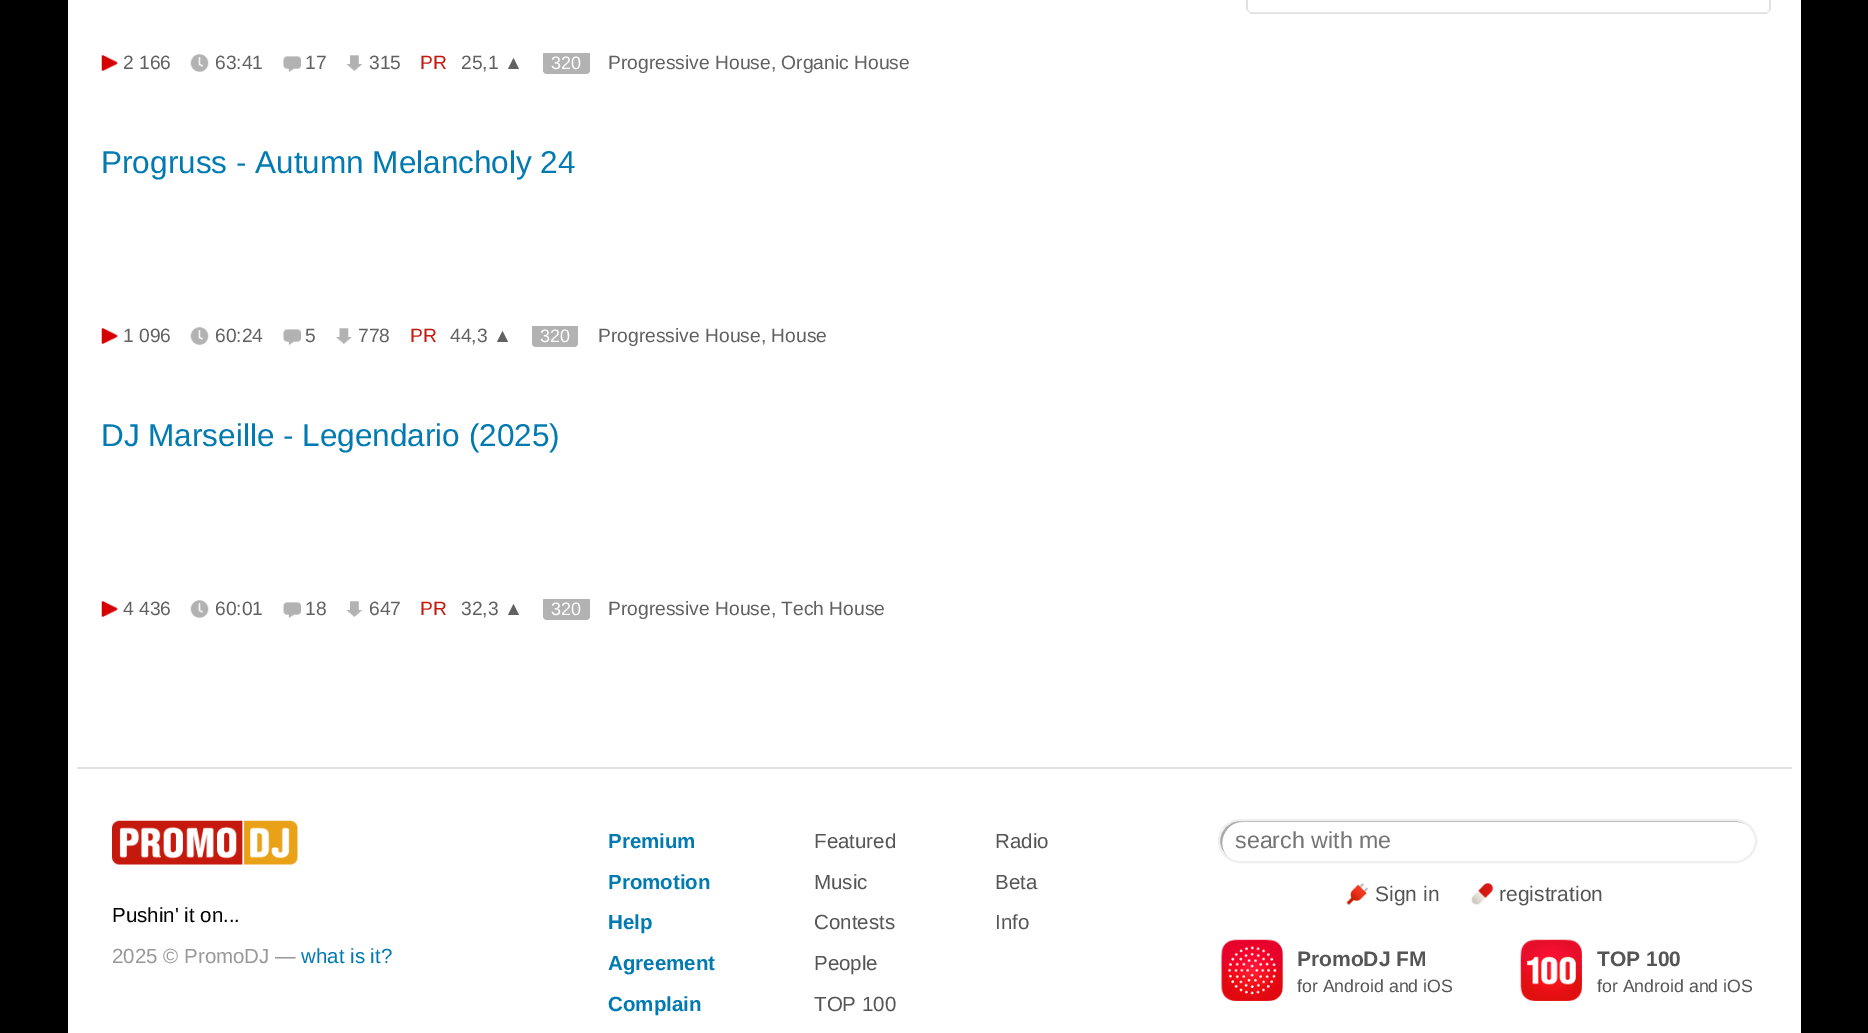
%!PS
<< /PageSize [1868 1033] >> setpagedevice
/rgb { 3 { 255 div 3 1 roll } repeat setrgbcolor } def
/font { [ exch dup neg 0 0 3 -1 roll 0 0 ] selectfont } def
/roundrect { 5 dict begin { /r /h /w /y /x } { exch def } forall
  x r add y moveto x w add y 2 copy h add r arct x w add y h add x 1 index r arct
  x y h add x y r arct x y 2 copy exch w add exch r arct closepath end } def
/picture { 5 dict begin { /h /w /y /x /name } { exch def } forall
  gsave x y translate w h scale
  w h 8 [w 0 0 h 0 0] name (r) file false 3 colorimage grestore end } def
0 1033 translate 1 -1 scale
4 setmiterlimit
0 0 0 rgb
0 0 1868 1033 rectfill
255 255 255 rgb
68 0 1733 1033 rectfill
(img/3.rgb) 1766 8 5 6 picture
224 224 224 rgb
1769 0 2 9 rectfill
(img/2.rgb) 1246 8 5 6 picture
1246 0 2 9 rectfill
(img/1.rgb) 1251 12 515 2 picture
(img/4.rgb) 101 55 17 16 picture
(img/5.rgb) 190 54 19 18 picture
(img/6.rgb) 283 56 18 16 picture
(img/7.rgb) 346 55 17 16 picture
gsave
102 53 1092 21 rectclip
178 178 178 rgb
543 51 47 23 4 roundrect fill
grestore
(img/4.rgb) 101 328 17 16 picture
(img/5.rgb) 190 327 19 18 picture
(img/6.rgb) 283 329 18 16 picture
(img/8.rgb) 336 328 16 16 picture
gsave
102 326 1092 21 rectclip
178 178 178 rgb
532 324 46 23 4 roundrect fill
grestore
(img/4.rgb) 101 601 17 16 picture
(img/5.rgb) 190 600 19 18 picture
(img/6.rgb) 283 602 18 16 picture
(img/7.rgb) 346 601 17 16 picture
gsave
102 599 1092 21 rectclip
178 178 178 rgb
543 597 47 23 4 roundrect fill
grestore
77 767 1715 2 rectfill
(img/9.rgb) 112 820 186 45 picture
170 170 170 rgb
1242 822 moveto 1737 822 lineto 1740 822 1744 823 1747 825 curveto 1743 822 1739 821 1735 821 curveto 1240 821 lineto 1221 821 1213 844 1227 856 curveto 1216 844 1225 822 1242 822 curveto closepath fill
239 239 239 rgb
2 setlinewidth
1219 820 537 42 21 roundrect stroke
(img/10.rgb) 1346 883 23 23 picture
(img/11.rgb) 1471 883 22 22 picture
(img/12.rgb) 1221 939 62 62 picture
(img/13.rgb) 1520 939 62 62 picture
/LiberationSans-Regular 19.25 font
97 97 97 rgb
[
  [(2 166) 123 69]
  [(63:41) 215 69]
  [(17) 305 69]
  [(315) 369 69]
] { aload pop moveto show } forall
198 25 14 rgb
420 69 moveto (PR) show
97 97 97 rgb
461 69 moveto (25,1 ▲) show
/LiberationSans-Regular 18 font
255 255 255 rgb
551 69 moveto (320) show
/LiberationSans-Regular 19.25 font
97 97 97 rgb
608 69 moveto (Progressive House, Organic House) show
/LiberationSans-Regular 31.5 font
0 122 177 rgb
101 173 moveto (Progruss - Autumn Melancholy 24) show
/LiberationSans-Regular 19.25 font
97 97 97 rgb
[
  [(1 096) 123 342]
  [(60:24) 215 342]
  [(5) 305 342]
  [(778) 358 342]
] { aload pop moveto show } forall
198 25 14 rgb
410 342 moveto (PR) show
97 97 97 rgb
450 342 moveto (44,3 ▲) show
/LiberationSans-Regular 18 font
255 255 255 rgb
540 342 moveto (320) show
/LiberationSans-Regular 19.25 font
97 97 97 rgb
598 342 moveto (Progressive House, House) show
/LiberationSans-Regular 31.5 font
0 122 177 rgb
101 446 moveto (DJ Marseille - Legendario \(2025\)) show
/LiberationSans-Regular 19.25 font
97 97 97 rgb
[
  [(4 436) 123 615]
  [(60:01) 215 615]
  [(18) 305 615]
  [(647) 369 615]
] { aload pop moveto show } forall
198 25 14 rgb
420 615 moveto (PR) show
97 97 97 rgb
461 615 moveto (32,3 ▲) show
/LiberationSans-Regular 18 font
255 255 255 rgb
551 615 moveto (320) show
/LiberationSans-Regular 19.25 font
97 97 97 rgb
608 615 moveto (Progressive House, Tech House) show
/LiberationSans-Regular 20.5 font
0 0 0 rgb
112 922 moveto (Pushin' it on...) show
153 153 153 rgb
112 963 moveto (2025 © PromoDJ —) show
0 122 177 rgb
301 963 moveto (what is it?) show
/LiberationSans-Bold 20.5 font
[
  [(Premium) 608 848]
  [(Promotion) 608 889]
  [(Help) 608 929]
  [(Agreement) 608 970]
  [(Complain) 608 1011]
] { aload pop moveto show } forall
/LiberationSans-Regular 20.5 font
85 85 85 rgb
[
  [(Featured) 814 848]
  [(Music) 814 889]
  [(Contests) 814 929]
  [(People) 814 970]
  [(TOP 100) 814 1011]
  [(Radio) 995 848]
  [(Beta) 995 889]
  [(Info) 995 929]
] { aload pop moveto show } forall
/LiberationSans-Regular 23.25 font
117 117 117 rgb
1235 848 moveto (search with me) show
/LiberationSans-Regular 21 font
85 85 85 rgb
1375 901 moveto (Sign in) show
1499 901 moveto (registration) show
/LiberationSans-Bold 21 font
1297 966 moveto (PromoDJ FM) show
/LiberationSans-Regular 17.75 font
1297 992 moveto (for Android and iOS) show
/LiberationSans-Bold 21 font
1597 966 moveto (TOP 100) show
/LiberationSans-Regular 17.75 font
1597 992 moveto (for Android and iOS) show
showpage
